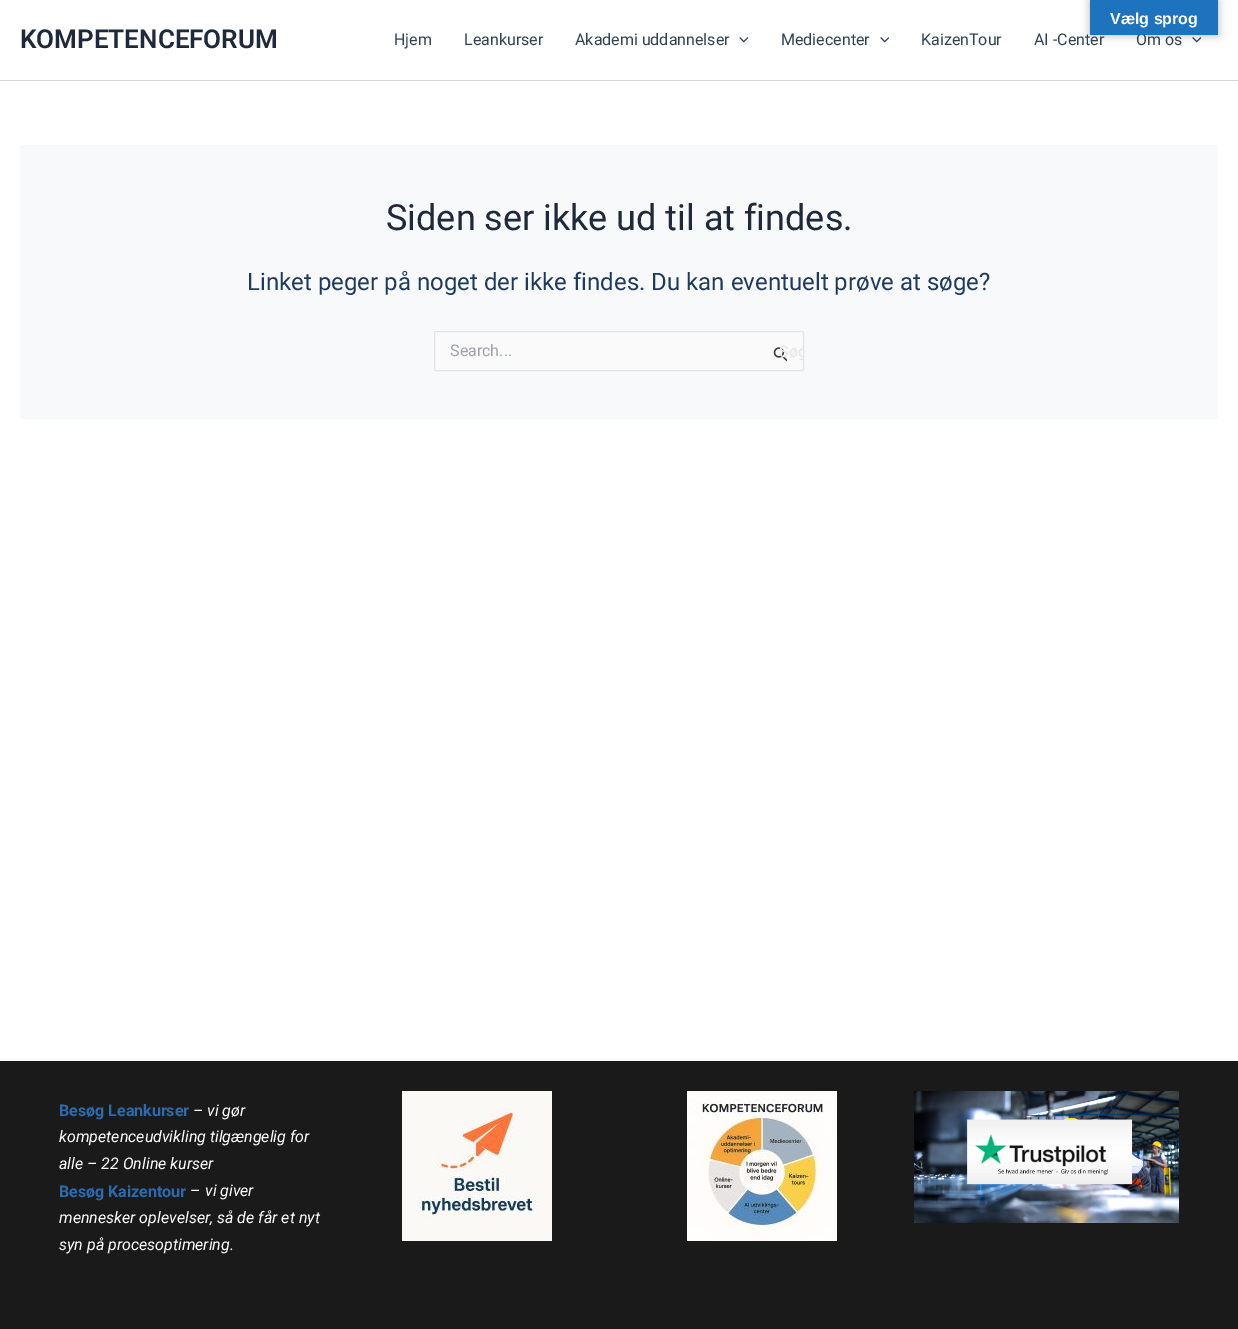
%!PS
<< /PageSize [1238 1329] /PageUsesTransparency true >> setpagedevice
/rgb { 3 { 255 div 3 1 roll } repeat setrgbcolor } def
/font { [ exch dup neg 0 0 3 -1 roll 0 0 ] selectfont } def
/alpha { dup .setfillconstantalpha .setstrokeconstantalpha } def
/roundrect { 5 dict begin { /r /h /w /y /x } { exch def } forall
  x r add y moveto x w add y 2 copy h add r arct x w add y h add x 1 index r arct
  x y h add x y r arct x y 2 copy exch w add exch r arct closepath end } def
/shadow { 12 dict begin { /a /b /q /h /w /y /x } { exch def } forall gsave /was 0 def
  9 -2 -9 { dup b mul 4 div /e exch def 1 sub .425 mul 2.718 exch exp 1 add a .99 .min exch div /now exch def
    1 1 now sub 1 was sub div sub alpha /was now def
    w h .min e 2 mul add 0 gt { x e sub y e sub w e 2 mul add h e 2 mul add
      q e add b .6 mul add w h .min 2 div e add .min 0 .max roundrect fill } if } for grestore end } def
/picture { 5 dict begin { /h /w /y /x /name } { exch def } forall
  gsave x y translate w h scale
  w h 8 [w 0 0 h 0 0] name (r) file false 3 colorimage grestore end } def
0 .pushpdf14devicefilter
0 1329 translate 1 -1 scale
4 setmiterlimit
255 255 255 rgb
0 0 1238 1329 rectfill
(img/1.rgb) 1192 37 10 6 picture
0 0 0 rgb
1090 0 128 35 0 4.5 0.3 shadow
209 213 219 rgb
0 80 1238 1 rectfill
(img/1.rgb) 739 37 10 6 picture
(img/2.rgb) 880 37 9 6 picture
247 249 250 rgb
20 145 1198 274 rectfill
250 250 250 rgb
434.5 331.5 369 39 1.5 roundrect gsave fill grestore
224 228 231 rgb
stroke
(img/3.rgb) 773 347 14 15 picture
26 26 26 rgb
0 1061 1238 268 rectfill
(img/4.rgb) 402 1091 150 150 picture
(img/5.rgb) 687 1091 150 150 picture
(img/6.rgb) 914 1091 265 132 picture
/Roboto-SemiBold 26 font
30 41 59 rgb
20 48 moveto (KOMPETENCEFORUM) show
/Roboto-Regular 16 font
51 65 85 rgb
[
  [(Hjem) 394 45]
  [(Leankurser) 464 45]
  [(Akademi uddannelser) 575 45]
  [(Mediecenter) 781 45]
  [(KaizenTour) 921 45]
  [(AI -Center) 1034 45]
  [(Om os) 1136 45]
] { aload pop moveto show } forall
30 115 190 rgb
1090 0 128 35 rectfill
/LiberationSans-Bold 16 font
255 255 255 rgb
1110 24 moveto (Vælg sprog) show
/Roboto-Regular 36 font
30 41 59 rgb
386 230 moveto (Siden ser ikke ud til at findes.) show
/Roboto-Regular 24 font
30 58 95 rgb
247 290 moveto (Linket peger på noget der ikke findes. Du kan eventuelt prøve at søge?) show
/Roboto-Regular 16 font
156 163 175 rgb
450 356 moveto (Search...) show
gsave
759 331 45 42 2 roundrect clip newpath
/Roboto-Medium 16 font
232 232 232 rgb
779 357 moveto (Søg) show
grestore
/Roboto-Bold 16 font
43 108 176 rgb
59 1116 moveto (Besøg Leankurser) show
/Roboto-Italic 16 font
255 255 255 rgb
[
  [(– vi gør) 193 1116]
  [(kompetenceudvikling tilgængelig for) 59 1142]
  [(alle – 22 Online kurser) 59 1169]
] { aload pop moveto show } forall
/Roboto-Bold 16 font
43 108 176 rgb
59 1197 moveto (Besøg Kaizentour) show
/Roboto-Regular 16 font
255 255 255 rgb
190 1196 moveto (–) show
/Roboto-Italic 16 font
[
  [(vi giver) 205 1196]
  [(mennesker oplevelser, så de får et nyt) 59 1223]
  [(syn på procesoptimering.) 59 1250]
] { aload pop moveto show } forall
.poppdf14devicefilter showpage
